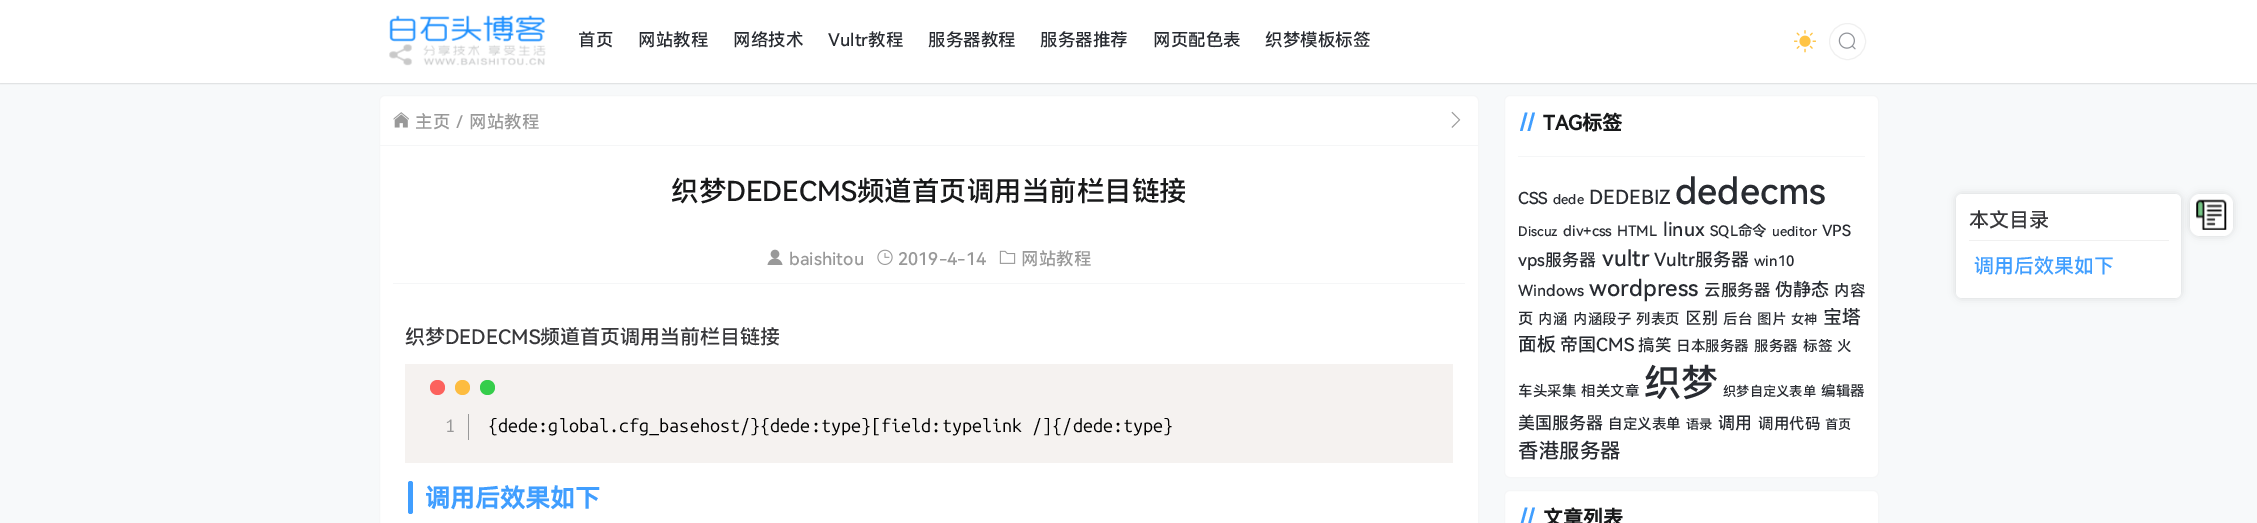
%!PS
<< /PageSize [2257 523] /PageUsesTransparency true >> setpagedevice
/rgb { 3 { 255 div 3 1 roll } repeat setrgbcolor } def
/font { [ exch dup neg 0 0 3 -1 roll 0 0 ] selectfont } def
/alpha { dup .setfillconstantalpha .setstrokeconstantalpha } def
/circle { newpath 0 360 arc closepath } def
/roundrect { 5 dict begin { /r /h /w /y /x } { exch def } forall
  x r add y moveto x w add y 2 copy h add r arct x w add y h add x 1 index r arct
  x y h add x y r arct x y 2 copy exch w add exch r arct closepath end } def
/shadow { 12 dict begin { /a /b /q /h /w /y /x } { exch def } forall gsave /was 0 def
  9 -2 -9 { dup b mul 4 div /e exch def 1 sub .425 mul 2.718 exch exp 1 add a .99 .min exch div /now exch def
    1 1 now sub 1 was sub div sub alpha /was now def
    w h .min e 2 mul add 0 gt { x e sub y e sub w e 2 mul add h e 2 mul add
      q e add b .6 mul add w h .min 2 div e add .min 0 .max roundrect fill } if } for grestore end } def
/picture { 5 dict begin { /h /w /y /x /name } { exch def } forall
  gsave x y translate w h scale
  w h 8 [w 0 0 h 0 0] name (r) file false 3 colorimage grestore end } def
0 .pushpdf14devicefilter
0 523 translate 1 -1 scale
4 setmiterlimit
247 249 250 rgb
0 0 2257 523 rectfill
0 0 0 rgb
0 0 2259 84 0 0.5 0.1 shadow
255 255 255 rgb
0 0 2257 83 rectfill
(img/1.rgb) 389 15 157 51 picture
(img/2.rgb) 1794 30 22 23 picture
240 240 240 rgb
1847.5 41.5 18 circle stroke
(img/3.rgb) 1838 32 18 18 picture
0 0 0 rgb
2190 194 43 42 10 4 0.12 shadow
255 255 255 rgb
2190 194 43 42 10 roundrect fill
0 0 0 rgb
1956 194 225 104 6 4 0.12 shadow
255 255 255 rgb
1956 194 225 104 6 roundrect fill
240 240 240 rgb
1969 240 200 1 rectfill
(img/4.rgb) 2196 199 31 31 picture
255 255 255 rgb
379.5 95.5 1099 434 5.5 roundrect gsave fill grestore
245 246 247 rgb
stroke
380 145 1098 1 rectfill
(img/5.rgb) 393 112 16 16 picture
(img/6.rgb) 1451 111 10 17 picture
393 283 1072 1 rectfill
(img/7.rgb) 767 249 16 16 picture
(img/8.rgb) 877 249 16 16 picture
(img/9.rgb) 999 250 17 14 picture
245 242 240 rgb
405 364 1048 99 rectfill
53 205 75 rgb
487.5 387.5 7.5 circle fill
253 188 64 rgb
462.5 387.5 7.5 circle fill
252 98 93 rgb
437.5 387.5 7.5 circle fill
153 153 153 rgb
468 414 1 26 rectfill
64 158 255 rgb
408 481 5 33 2.5 roundrect fill
255 255 255 rgb
1504.5 95.5 374 382 5.5 roundrect gsave fill grestore
245 246 247 rgb
stroke
1518 156 347 1 rectfill
64 158 255 rgb
1525 112.5 moveto 1527.5 112.5 lineto 1522.5 131 lineto 1520 131 lineto closepath fill
1532.5 112.5 moveto 1535 112.5 lineto 1530 131 lineto 1527.5 131 lineto closepath fill
255 255 255 rgb
1504.5 490.5 374 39 5.5 roundrect gsave fill grestore
245 246 247 rgb
stroke
64 158 255 rgb
1525 507.5 moveto 1527.5 507.5 lineto 1522.5 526 lineto 1520 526 lineto closepath 1532.5 507.5 moveto 1535 507.5 lineto 1530 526 lineto 1527.5 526 lineto closepath fill
/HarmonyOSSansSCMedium-Medium 17.5 font
40 43 49 rgb
[
  [(首页) 578 46]
  [(网站教程) 638 46]
  [(网络技术) 733 46]
  [(Vultr教程) 828 46]
  [(服务器教程) 928 46]
  [(服务器推荐) 1040 46]
  [(网页配色表) 1153 46]
  [(织梦模板标签) 1265 46]
] { aload pop moveto show } forall
/HarmonyOSSansSCMedium-Medium 20 font
55 55 58 rgb
1969 227 moveto (本文目录) show
64 158 255 rgb
1974 273 moveto (调用后效果如下) show
/HarmonyOSSansSCMedium-Medium 17.5 font
153 153 153 rgb
[
  [(主页) 415 128]
  [(/) 456 128]
  [(网站教程) 469 128]
] { aload pop moveto show } forall
/HarmonyOSSansSCMedium-Medium 27.5 font
24 25 26 rgb
671 201 moveto (织梦DEDECMS频道首页调用当前栏目链接) show
/HarmonyOSSansSCMedium-Medium 17.5 font
153 153 153 rgb
[
  [(baishitou) 789 265]
  [(2019-4-14) 898 265]
  [(网站教程) 1021 265]
] { aload pop moveto show } forall
/HarmonyOSSansSCMedium-Medium 20 font
55 55 58 rgb
405 344 moveto (织梦DEDECMS频道首页调用当前栏目链接) show
/UbuntuMono-Regular 18 font
153 153 153 rgb
445 432 moveto -1 0 (1) ashow
0 0 0 rgb
488 432 moveto ({dede:global.cfg_basehost/}{dede:type}[field:typelink /]{/dede:type}) show
/HarmonyOSSansSCMedium-Bold 25 font
64 158 255 rgb
425 507 moveto (调用后效果如下) show
/HarmonyOSSansSCMedium-Bold 20 font
24 25 26 rgb
1543 130 moveto (TAG标签) show
/HarmonyOSSansSCMedium-Medium 16.5 font
40 43 49 rgb
1518 204 moveto (CSS) show
/HarmonyOSSansSCMedium-Medium 13.25 font
1553 204 moveto (dede) show
/HarmonyOSSansSCMedium-Medium 19.5 font
1589 204 moveto (DEDEBIZ) show
/HarmonyOSSansSCMedium-Medium 36.5 font
1675 204 moveto (dedecms) show
/HarmonyOSSansSCMedium-Medium 13.25 font
1518 236 moveto (Discuz) show
/HarmonyOSSansSCMedium-Medium 14.5 font
1563 236 moveto (div+css) show
1617 236 moveto (HTML) show
/HarmonyOSSansSCMedium-Medium 19 font
1663 236 moveto (linux) show
/HarmonyOSSansSCMedium-Medium 14.5 font
1710 236 moveto (SQL命令) show
/HarmonyOSSansSCMedium-Medium 13.25 font
1772 236 moveto (ueditor) show
/HarmonyOSSansSCMedium-Medium 15.5 font
1822 236 moveto (VPS) show
/HarmonyOSSansSCMedium-Medium 17 font
1518 266 moveto (vps服务器) show
/HarmonyOSSansSCMedium-Medium 22 font
1602 266 moveto (vultr) show
/HarmonyOSSansSCMedium-Medium 18 font
1654 266 moveto (Vultr服务器) show
/HarmonyOSSansSCMedium-Medium 14.5 font
1754 266 moveto (win10) show
/HarmonyOSSansSCMedium-Medium 15.5 font
1518 296 moveto (Windows) show
/HarmonyOSSansSCMedium-Medium 22.5 font
1589 296 moveto (wordpress) show
/HarmonyOSSansSCMedium-Medium 16.5 font
1704 296 moveto (云服务器) show
/HarmonyOSSansSCMedium-Medium 18 font
1775 296 moveto (伪静态) show
/HarmonyOSSansSCMedium-Medium 15.5 font
1834 296 moveto (内容) show
1518 324 moveto (页) show
/HarmonyOSSansSCMedium-Medium 14.5 font
[
  [(内涵) 1538 324]
  [(内涵段子) 1573 324]
  [(列表页) 1636 324]
] { aload pop moveto show } forall
/HarmonyOSSansSCMedium-Medium 16.5 font
1685 324 moveto (区别) show
/HarmonyOSSansSCMedium-Medium 14.5 font
1723 324 moveto (后台) show
1757 324 moveto (图片) show
/HarmonyOSSansSCMedium-Medium 13.25 font
1791 324 moveto (女神) show
/HarmonyOSSansSCMedium-Medium 19 font
1823 324 moveto (宝塔) show
1518 351 moveto (面板) show
/HarmonyOSSansSCMedium-Medium 18 font
1560 351 moveto (帝国CMS) show
/HarmonyOSSansSCMedium-Medium 16.5 font
1638 351 moveto (搞笑) show
/HarmonyOSSansSCMedium-Medium 14.5 font
[
  [(日本服务器) 1676 351]
  [(服务器) 1754 351]
  [(标签) 1803 351]
  [(火) 1837 351]
  [(车头采集) 1518 396]
  [(相关文章) 1581 396]
] { aload pop moveto show } forall
/HarmonyOSSansSCMedium-Medium 37 font
1644 396 moveto (织梦) show
/HarmonyOSSansSCMedium-Medium 13.25 font
1723 396 moveto (织梦自定义表单) show
/HarmonyOSSansSCMedium-Medium 14.5 font
1821 396 moveto (编辑器) show
/HarmonyOSSansSCMedium-Medium 17 font
1518 429 moveto (美国服务器) show
/HarmonyOSSansSCMedium-Medium 14.5 font
1608 429 moveto (自定义表单) show
/HarmonyOSSansSCMedium-Medium 13.25 font
1686 429 moveto (语录) show
/HarmonyOSSansSCMedium-Medium 17 font
1718 429 moveto (调用) show
/HarmonyOSSansSCMedium-Medium 15.5 font
1758 429 moveto (调用代码) show
/HarmonyOSSansSCMedium-Medium 13.25 font
1825 429 moveto (首页) show
/HarmonyOSSansSCMedium-Medium 20.5 font
1518 458 moveto (香港服务器) show
/HarmonyOSSansSCMedium-Bold 20 font
24 25 26 rgb
1543 525 moveto (文章列表) show
.poppdf14devicefilter showpage
